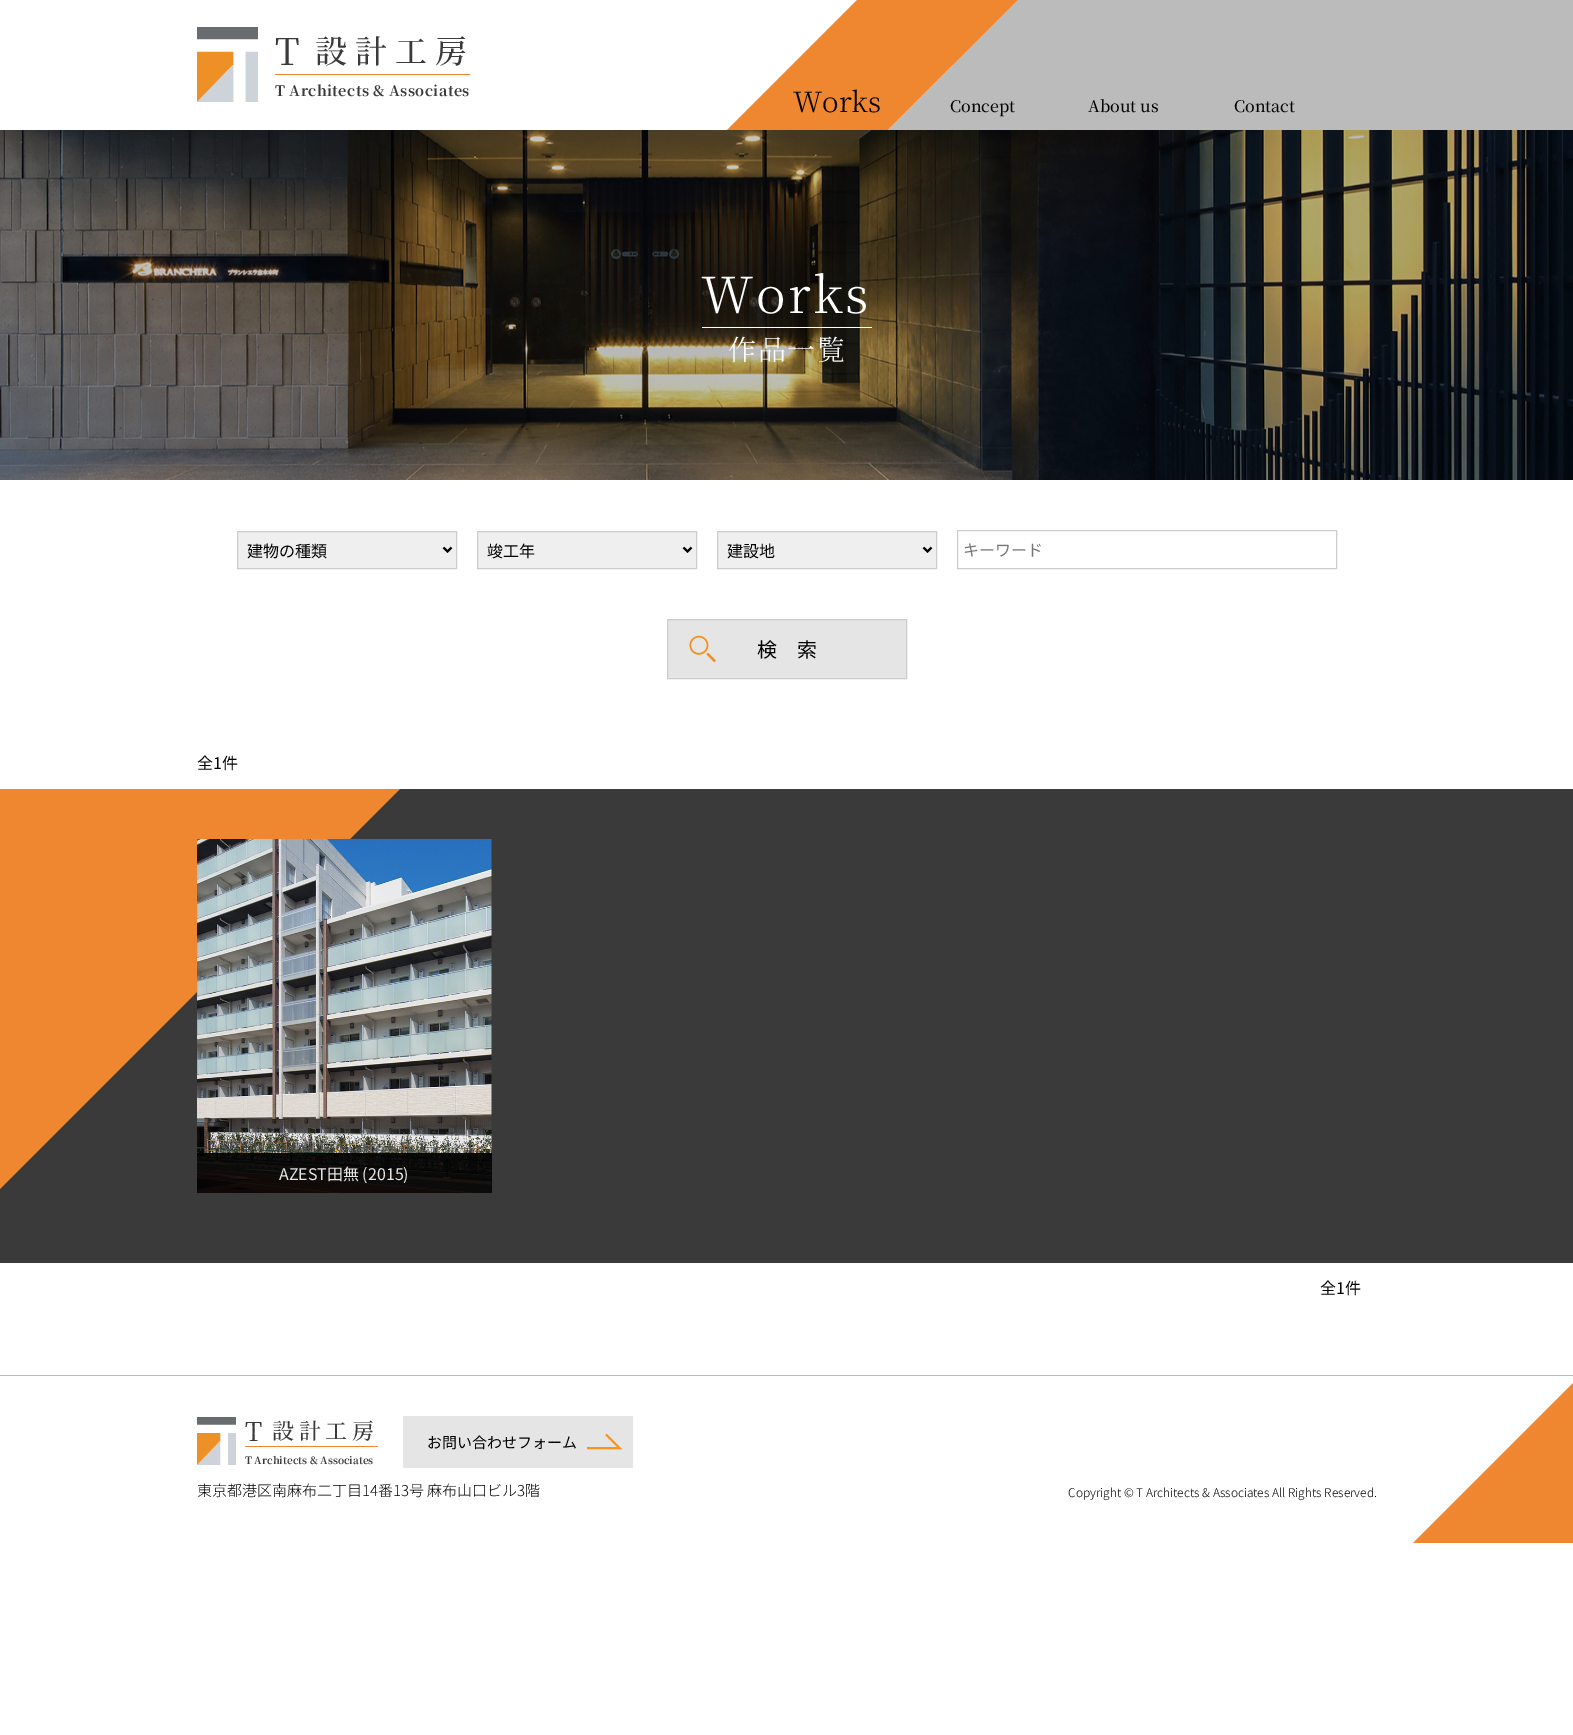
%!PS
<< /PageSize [1573 1735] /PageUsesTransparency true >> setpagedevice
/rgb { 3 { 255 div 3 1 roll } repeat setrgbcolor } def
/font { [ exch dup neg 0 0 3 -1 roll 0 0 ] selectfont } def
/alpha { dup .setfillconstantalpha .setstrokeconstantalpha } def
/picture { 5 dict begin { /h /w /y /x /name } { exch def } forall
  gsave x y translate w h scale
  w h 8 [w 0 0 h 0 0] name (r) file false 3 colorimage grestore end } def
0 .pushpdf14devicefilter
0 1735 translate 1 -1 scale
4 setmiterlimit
255 255 255 rgb
0 0 1573 1735 rectfill
(img/1.rgb) 197 27 61 75 picture
239 135 48 rgb
275 74 195 1 rectfill
187 187 187 rgb
953 0 620 130 rectfill
239 135 48 rgb
857 0 moveto 1018 0 lineto 888 130 lineto 727 130 lineto closepath fill
187 187 187 rgb
1018 0 moveto 1159 0 lineto 1029 130 lineto 888 130 lineto closepath fill
(img/2.rgb) 0 130 1573 350 picture
255 255 255 rgb
702 327 170 1 rectfill
239 239 239 rgb
237.5 531.5 moveto 456.5 531.5 lineto 456.5 568.5 lineto 237.5 568.5 lineto closepath gsave fill grestore
204 204 204 rgb
stroke
0 0 0 rgb
2 setlinewidth
443.5 547.5 moveto 447.5 551.5 lineto 451.5 547.5 lineto stroke
239 239 239 rgb
477.5 531.5 moveto 696.5 531.5 lineto 696.5 568.5 lineto 477.5 568.5 lineto closepath gsave fill grestore
204 204 204 rgb
1 setlinewidth
stroke
0 0 0 rgb
2 setlinewidth
683.5 547.5 moveto 687.5 551.5 lineto 691.5 547.5 lineto stroke
239 239 239 rgb
717.5 531.5 moveto 936.5 531.5 lineto 936.5 568.5 lineto 717.5 568.5 lineto closepath gsave fill grestore
204 204 204 rgb
1 setlinewidth
stroke
0 0 0 rgb
2 setlinewidth
923.5 547.5 moveto 927.5 551.5 lineto 931.5 547.5 lineto stroke
204 204 204 rgb
1 setlinewidth
957.5 530.5 379 38 rectstroke
229 229 229 rgb
668 620 238 58 rectfill
(img/3.rgb) 689 635 27 27 picture
204 204 204 rgb
667.5 619.5 239 59 rectstroke
58 58 58 rgb
0 789 1573 474 rectfill
239 135 48 rgb
0 789 moveto 0 1189 lineto 400 789 lineto closepath fill
(img/4.rgb) 197 839 295 354 picture
0.9 alpha
0 0 0 rgb
197 1153 295 40 rectfill
1 alpha
187 187 187 rgb
0 1375 1573 1 rectfill
(img/5.rgb) 197 1417 39 48 picture
239 135 48 rgb
245 1446 133 1 rectfill
229 229 229 rgb
403 1416 230 52 rectfill
248 147 29 rgb
2 setlinewidth
587 1448 moveto 619.5 1448 lineto 606 1434.5 lineto stroke
239 135 48 rgb
1573 1543 moveto 1573 1383 lineto 1413 1543 lineto closepath fill
/NotoSerifJP-Regular 37 font
58 58 58 rgb
275 65 moveto 17 0 (T) ashow
/NotoSerifJP-Medium 32 font
315 63 moveto 8 0 (設計工房) ashow
/NotoSerifJP-Bold 14.4 font
275 96 moveto 0.4 0 (T Architects & Associates) ashow
/NotoSerifJP-Light 28 font
0 0 0 rgb
793 112 moveto (Works) show
/NotoSerifJP-Medium 16 font
[
  [(Concept) 950 112]
  [(About us) 1088 112]
  [(Contact) 1234 112]
] { aload pop moveto show } forall
/NotoSerifJP-Light 50 font
255 255 255 rgb
701 313 moveto 2.5 0 (Works) ashow
/NotoSerifJP-Light 28 font
728 360 moveto 1.5 0 (作品一覧) ashow
/NotoSansJP-Regular 16 font
0 0 0 rgb
[
  [(建物の種類) 247 557]
  [(竣工年) 487 557]
  [(建設地) 727 557]
] { aload pop moveto show } forall
117 117 117 rgb
963 556 moveto (キーワード) show
/NotoSansJP-Regular 20 font
0 0 0 rgb
757 657 moveto (検　索) show
/NotoSansJP-Regular 16 font
197 769 moveto (全1件) show
231 231 231 rgb
279 1180 moveto (AZEST田無 \(2015\)) show
0 0 0 rgb
1320 1294 moveto (全1件) show
/NotoSerifJP-Regular 26 font
58 58 58 rgb
245 1441 moveto 10 0 (T) ashow
/NotoSerifJP-Medium 22 font
272 1439 moveto 4.5 0 (設計工房) ashow
/NotoSerifJP-Bold 10 font
245 1464 moveto (T Architects & Associates) show
/NotoSansJP-Regular 15 font
0 0 0 rgb
427 1448 moveto (お問い合わせフォーム) show
/NotoSansJP-Light 15 font
197 1496 moveto (東京都港区南麻布二丁目14番13号 麻布山口ビル3階) show
/NotoSansJP-Light 12 font
1068 1497 moveto (Copyright © T Architects & Associates All Rights Reserved.) show
.poppdf14devicefilter showpage
